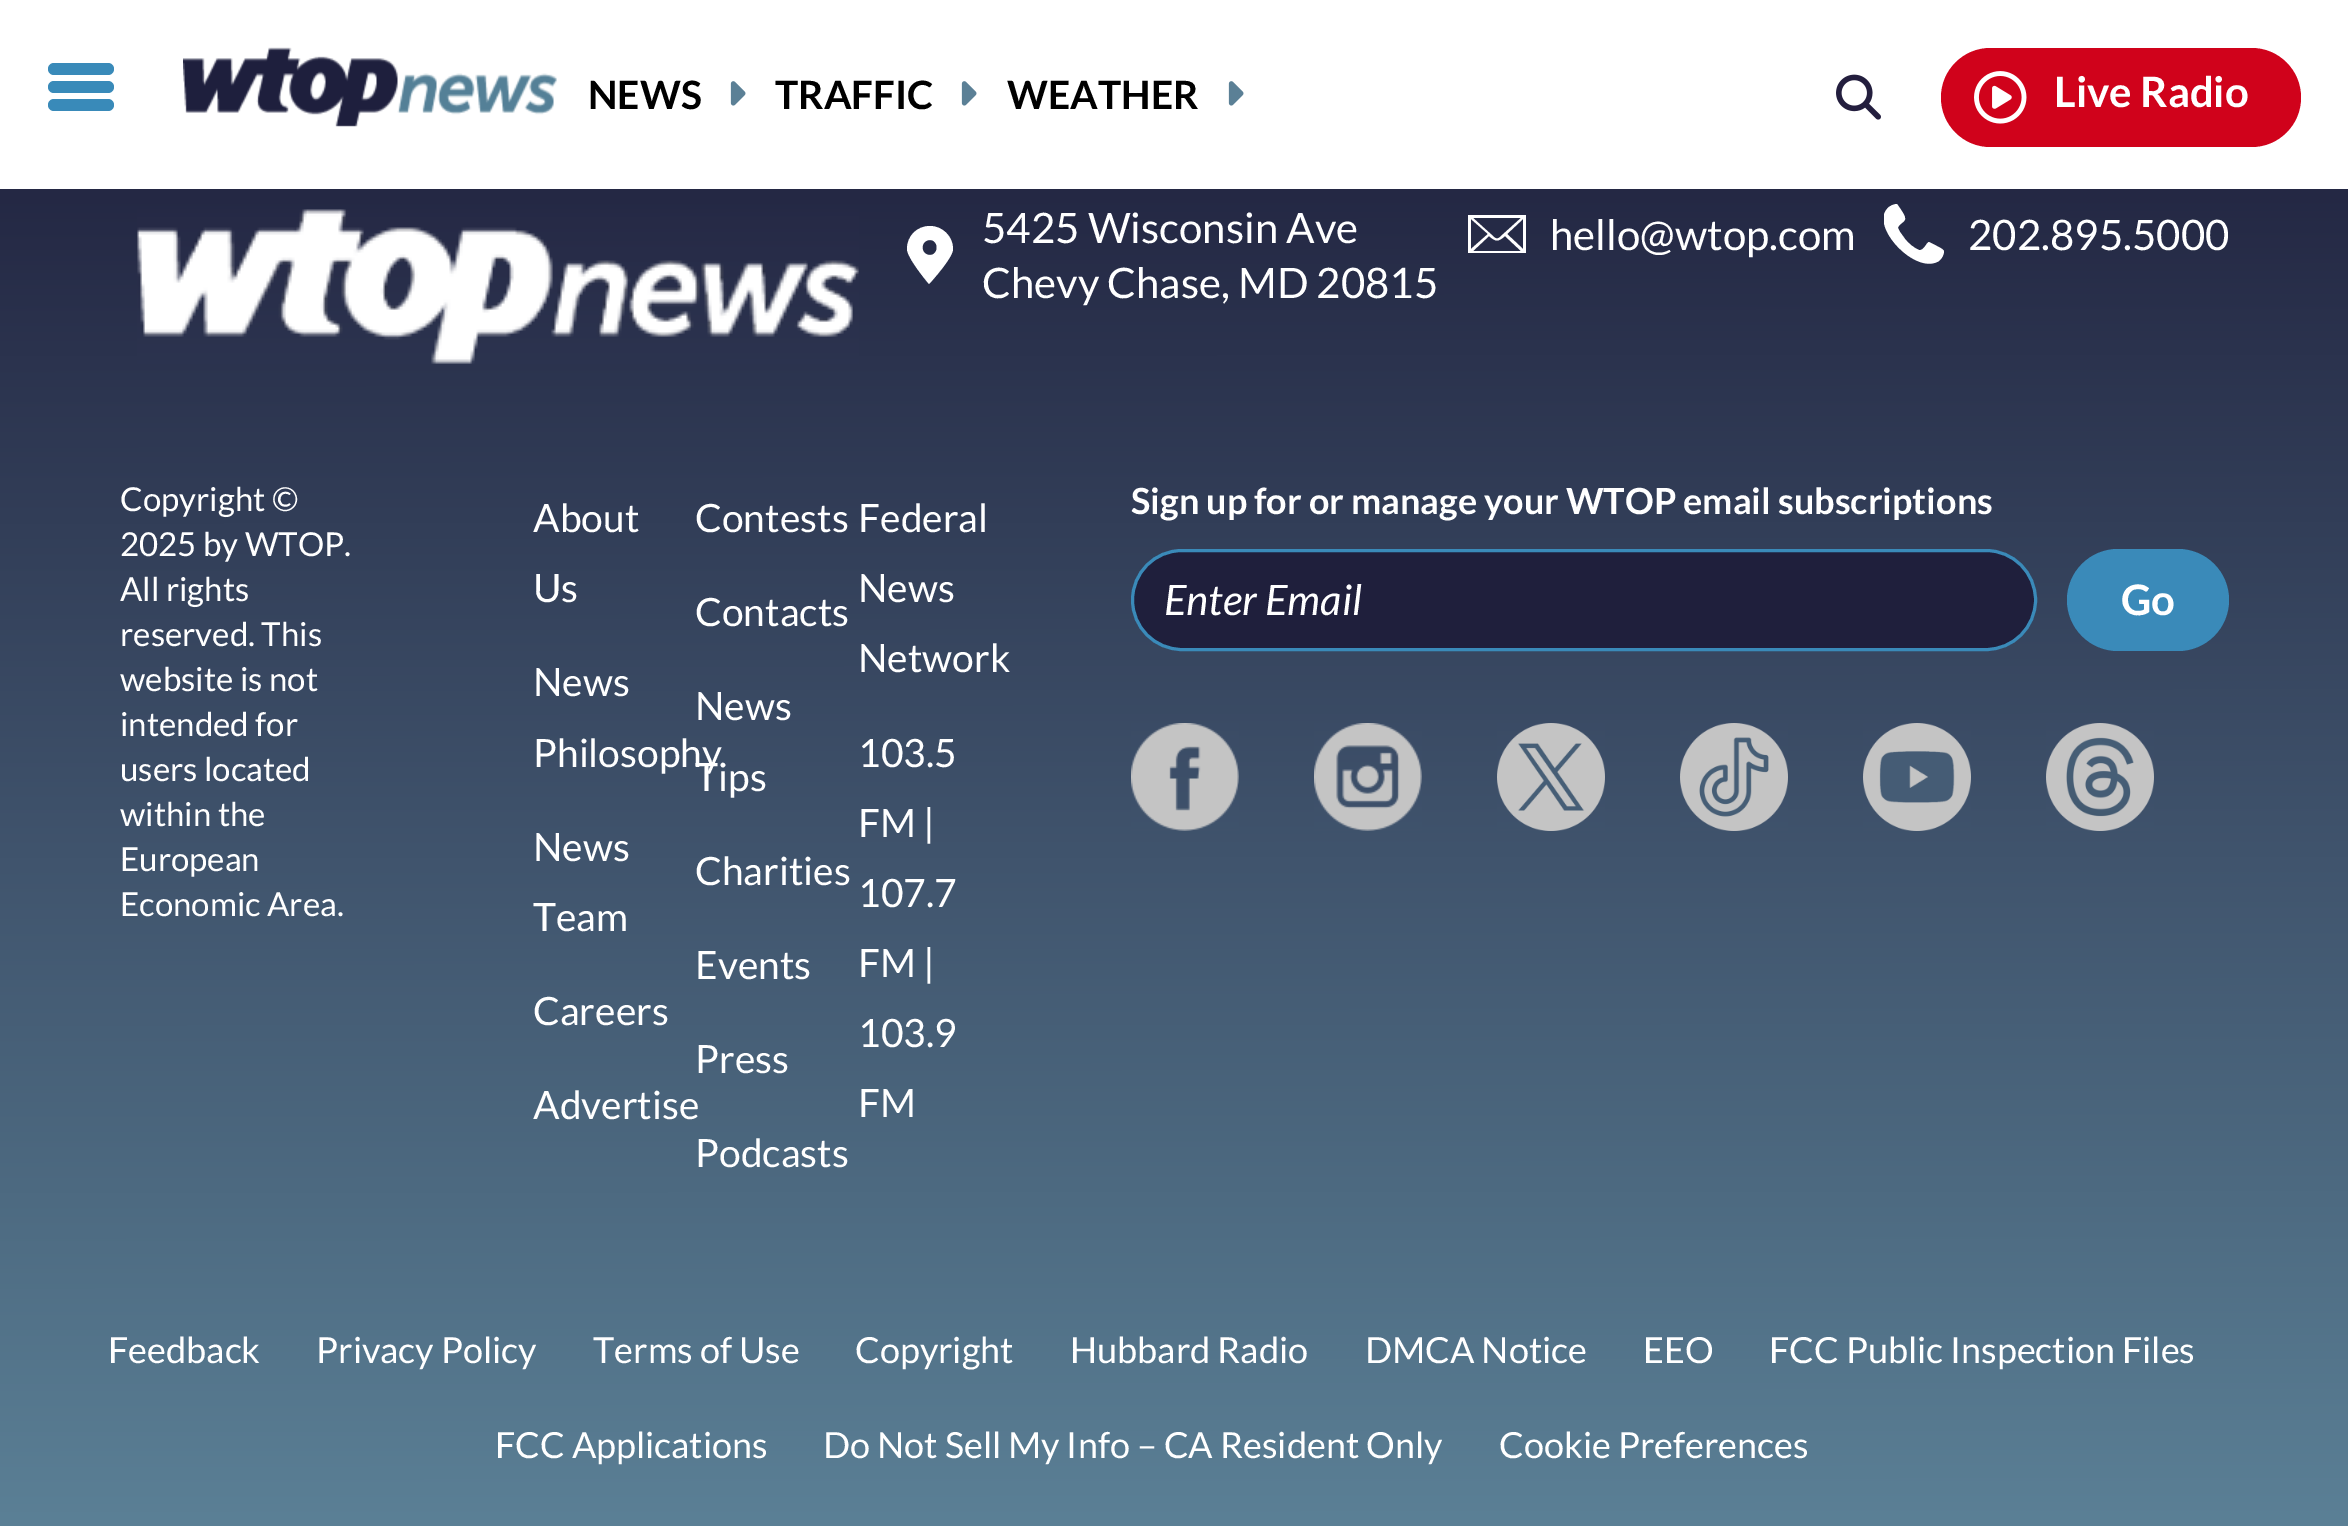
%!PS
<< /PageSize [2348 1526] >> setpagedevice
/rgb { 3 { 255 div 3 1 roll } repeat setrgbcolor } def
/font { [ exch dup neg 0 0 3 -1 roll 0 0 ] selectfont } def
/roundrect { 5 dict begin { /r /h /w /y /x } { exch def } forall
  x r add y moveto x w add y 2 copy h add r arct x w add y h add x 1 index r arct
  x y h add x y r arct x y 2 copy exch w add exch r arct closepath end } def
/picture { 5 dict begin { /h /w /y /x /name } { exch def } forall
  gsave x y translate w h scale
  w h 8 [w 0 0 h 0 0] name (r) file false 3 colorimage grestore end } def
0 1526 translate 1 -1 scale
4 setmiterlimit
255 255 255 rgb
0 0 2348 1526 rectfill
57 138 185 rgb
48 63 66 12 6 roundrect fill
48 81 66 12 6 roundrect fill
48 99 66 12 6 roundrect fill
(img/1.rgb) 183 47 374 80 picture
(img/2.rgb) 730 81 16 25 picture
(img/2.rgb) 961 81 16 25 picture
(img/2.rgb) 1228 81 16 25 picture
(img/3.rgb) 1836 74 45 46 picture
208 2 27 rgb
1941 48 360 99 49.5 roundrect fill
(img/4.rgb) 1974 71 53 53 picture
gsave 0 189 moveto 2348 189 lineto 2348 1526 lineto 0 1526 lineto closepath clip newpath
<< /ShadingType 2 /ColorSpace /DeviceRGB /Coords [1174 57 1175 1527] /Extend [true true] /Function << /FunctionType 2 /Domain [0 1] /C0 [0.122 0.122 0.235] /C1 [0.357 0.502 0.588] /N 1 >> >> shfill grestore
(img/5.rgb) 137 209 722 155 picture
255 255 255 rgb
930 226 moveto 917 226 907 236 907 249 curveto 907 258 929 284 929 284 curveto 929 284 953 258 953 249 curveto 953 236 942 226 930 226 curveto closepath 930 255 moveto 920 255 920 240 930 240 curveto 939 240 939 255 930 255 curveto closepath fill
1468 253 moveto 1468 215 lineto 1526 215 lineto 1526 253 lineto closepath 1471 249 moveto 1488 234 lineto 1471 219 lineto closepath 1473 218 moveto 1494 237 lineto 1496 239 1498 239 1500 237 curveto 1521 218 lineto closepath 1521 251 moveto 1505 236 lineto 1498 242 1496 242 1489 236 curveto 1473 251 lineto closepath 1507 234 moveto 1523 249 lineto 1523 219 lineto closepath fill
gsave
1884 204 60 60 rectclip
1897 204 moveto 1899 207 1905 215 1905 218 curveto 1906 222 1898 224 1898 228 curveto 1900 232 lineto 1905 239 lineto 1909 244 1914 248 1919 250 curveto 1924 251 1926 243 1929 242 curveto 1935 245 lineto 1938 247 1942 248 1944 251 curveto 1944 256 1940 261 1937 262 curveto 1914 273 1871 227 1887 209 curveto 1889 206 1894 204 1897 204 curveto closepath fill
grestore
31 31 60 rgb
1132.5 550.5 903 99 49.5 roundrect gsave fill grestore
58 138 185 rgb
3 setlinewidth
stroke
2067 549 162 102 51 roundrect fill
(img/6.rgb) 1131 723 108 108 picture
(img/7.rgb) 1314 723 108 108 picture
(img/8.rgb) 1497 723 108 108 picture
(img/9.rgb) 1680 723 108 108 picture
(img/10.rgb) 1863 723 108 108 picture
(img/11.rgb) 2046 723 108 108 picture
/Lato-Bold 39 font
0 0 0 rgb
[
  [(NEWS) 588 109]
  [(TRAFFIC) 775 109]
  [(WEATHER) 1007 109]
] { aload pop moveto show } forall
/Lato-Bold 42 font
255 255 255 rgb
2054 107 moveto (Live Radio) show
/Lato-Regular 42 font
[
  [(5425 Wisconsin Ave) 982 243]
  [(Chevy Chase, MD 20815) 982 298]
  [(hello@wtop.com) 1550 250]
  [(202.895.5000) 1968 250]
] { aload pop moveto show } forall
/Lato-Regular 33 font
[
  [(Copyright ©) 120 511]
  [(2025 by WTOP.) 120 556]
  [(All rights) 120 601]
  [(reserved. This) 120 646]
  [(website is not) 120 691]
  [(intended for) 120 736]
  [(users located) 120 781]
  [(within the) 120 826]
  [(European) 120 871]
  [(Economic Area.) 120 916]
] { aload pop moveto show } forall
/Lato-Regular 39 font
[
  [(About) 533 532]
  [(Us) 533 602]
  [(Contests) 695 532]
  [(Federal) 858 532]
  [(News) 858 602]
  [(Network) 858 672]
  [(Contacts) 695 626]
  [(News) 533 696]
  [(Philosophy) 533 767]
  [(News) 695 720]
  [(Tips) 695 791]
  [(103.5) 858 767]
  [(FM |) 858 837]
  [(107.7) 858 907]
  [(FM |) 858 977]
  [(103.9) 858 1047]
  [(FM) 858 1117]
  [(News) 533 861]
  [(Team) 533 931]
  [(Charities) 695 885]
  [(Events) 695 979]
  [(Careers) 533 1025]
  [(Press) 695 1073]
  [(Advertise) 533 1119]
  [(Podcasts) 695 1167]
] { aload pop moveto show } forall
/Lato-Bold 36 font
1131 514 moveto (Sign up for or manage your WTOP email subscriptions) show
/Lato-Italic 42 font
1164 615 moveto (Enter Email) show
/Lato-Bold 42 font
2121 615 moveto (Go) show
/Lato-Regular 36 font
[
  [(Feedback) 108 1363]
  [(Privacy Policy) 316 1363]
  [(Terms of Use) 593 1363]
  [(Copyright) 855 1363]
  [(Hubbard Radio) 1070 1363]
  [(DMCA Notice) 1365 1363]
  [(EEO) 1643 1363]
  [(FCC Public Inspection Files) 1769 1363]
  [(FCC Applications) 495 1458]
  [(Do Not Sell My Info – CA Resident Only) 823 1458]
  [(Cookie Preferences) 1499 1458]
] { aload pop moveto show } forall
showpage
